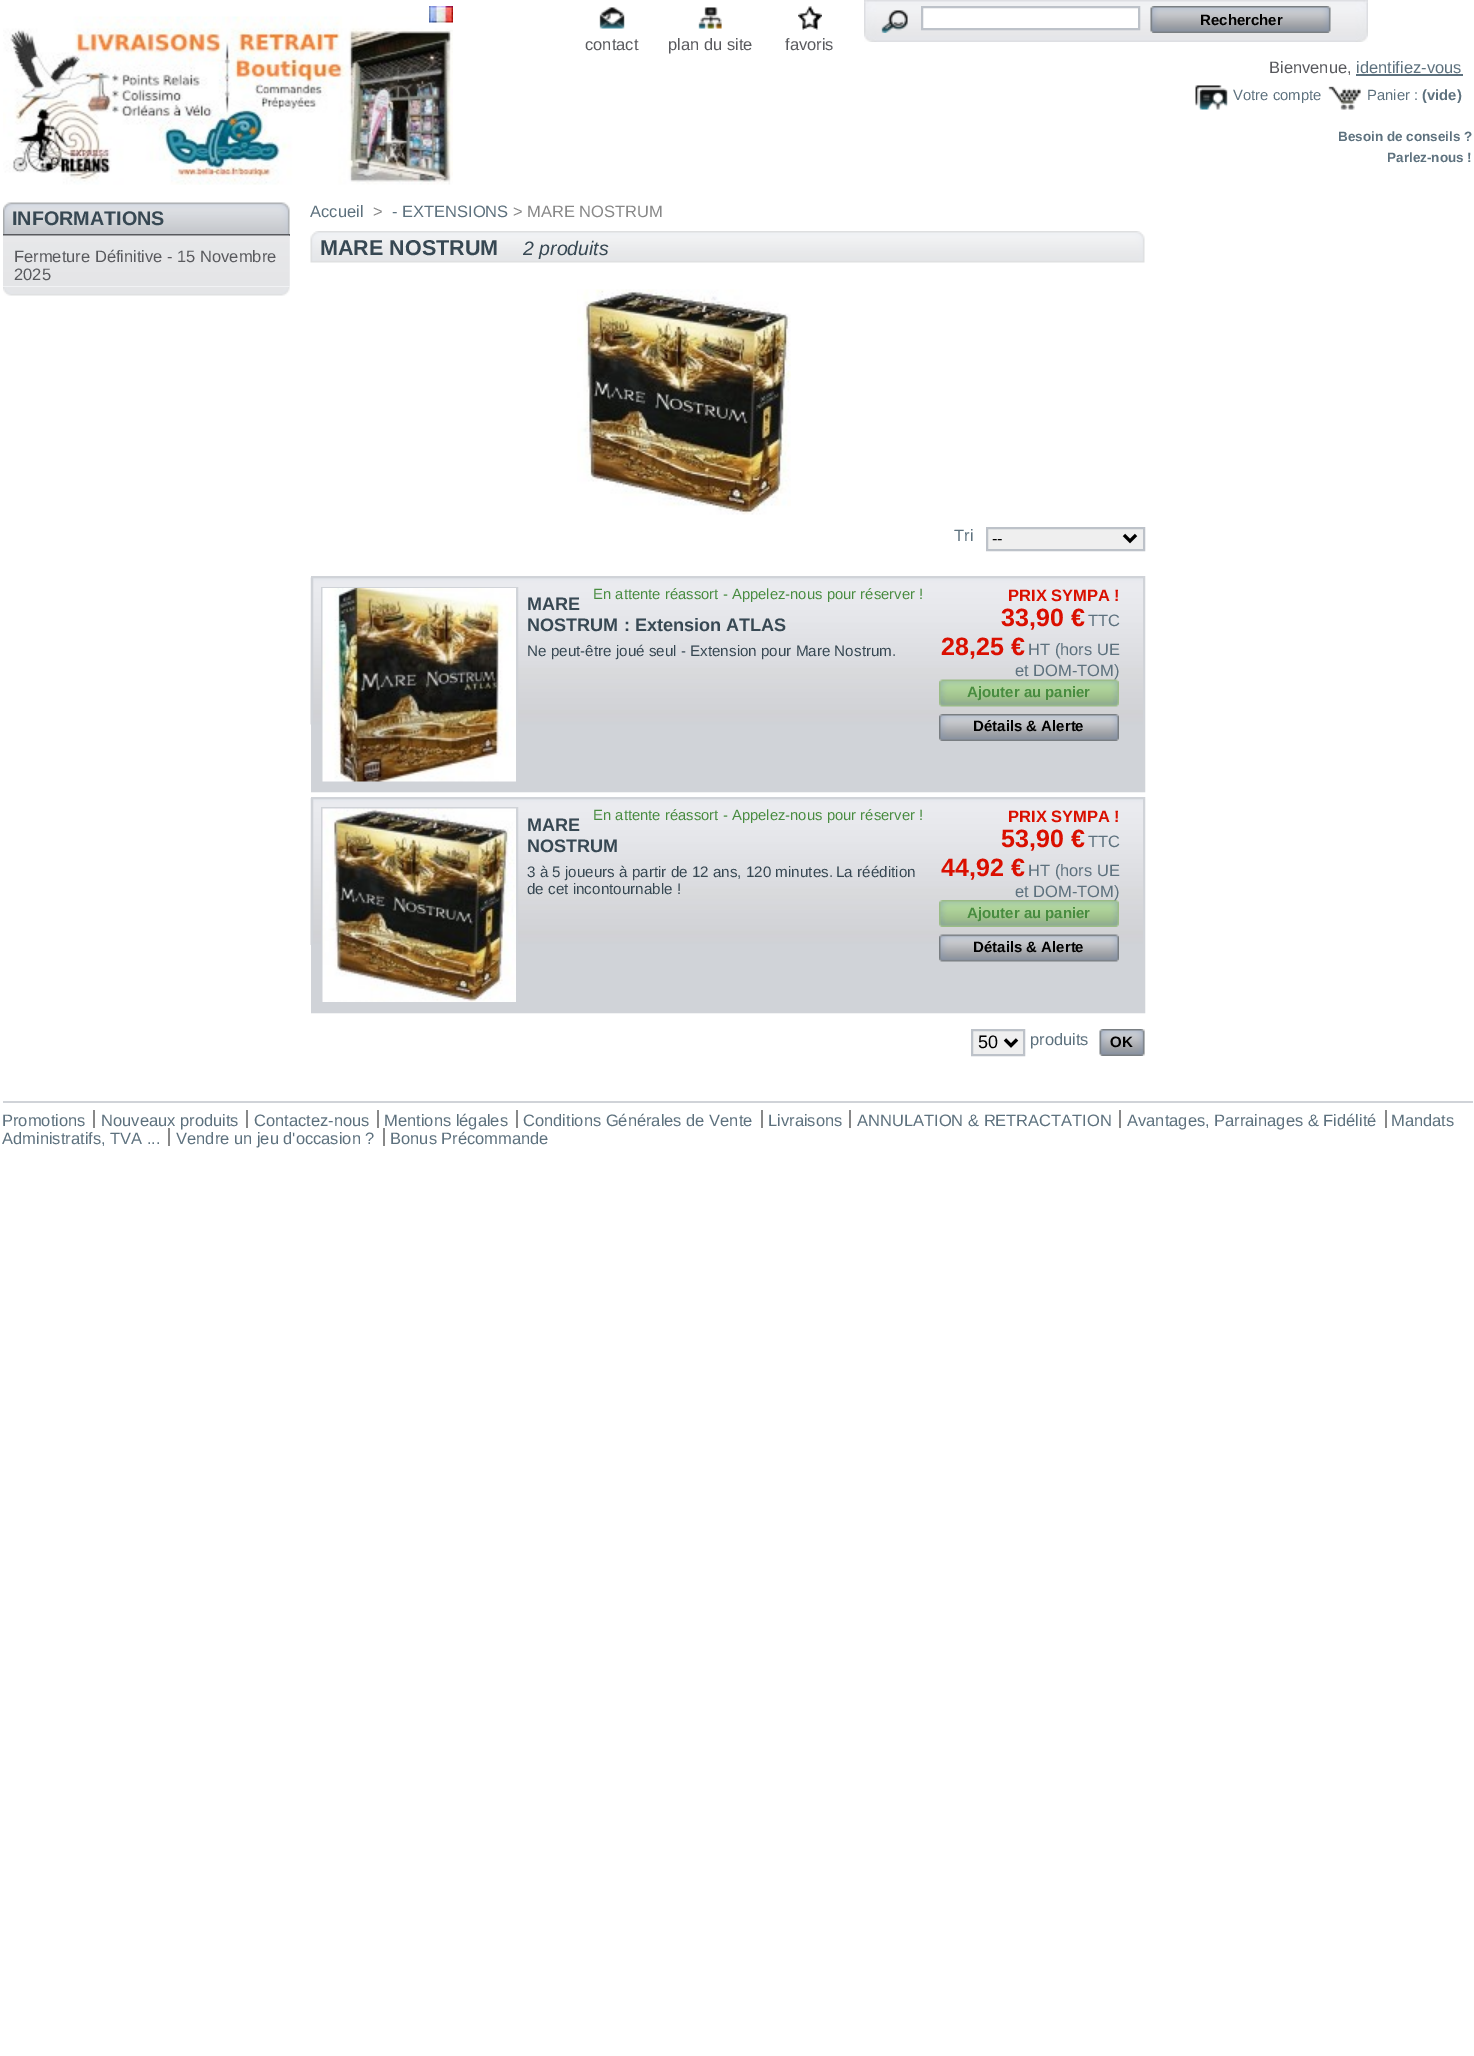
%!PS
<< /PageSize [1474 2056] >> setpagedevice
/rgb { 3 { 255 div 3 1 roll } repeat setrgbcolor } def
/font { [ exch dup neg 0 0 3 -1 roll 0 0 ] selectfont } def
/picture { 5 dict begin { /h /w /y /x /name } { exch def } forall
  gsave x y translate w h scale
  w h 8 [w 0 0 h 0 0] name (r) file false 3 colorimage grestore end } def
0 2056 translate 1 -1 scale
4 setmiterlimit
255 255 255 rgb
0 0 1474 2056 rectfill
(img/1.rgb) 3 16 450 169 picture
(img/2.rgb) 429 6 24 17 picture
(img/3.rgb) 864 0 504 42 picture
(img/4.rgb) 881 10 27 23 picture
922 7 moveto 1139 7 lineto 1139 29 lineto 922 29 lineto closepath gsave fill grestore
189 194 201 rgb
2 setlinewidth
stroke
239 239 239 rgb
1151 6 180 27 rectfill
(img/5.rgb) 1150 6 181 27 picture
(img/6.rgb) 599 7 26 22 picture
(img/7.rgb) 698 7 24 22 picture
(img/8.rgb) 798 6 24 24 picture
93 113 126 rgb
1356 74 107 2 rectfill
(img/9.rgb) 1195 85 33 25 picture
(img/10.rgb) 1328 86 33 24 picture
(img/11.rgb) 3 287 287 9 picture
(img/12.rgb) 3 202 287 32 picture
89 90 94 rgb
3 234 287 2 rectfill
241 242 244 rgb
3 236 287 51 rectfill
(img/13.rgb) 3 235 287 51 picture
(img/14.rgb) 310 231 835 32 picture
(img/15.rgb) 577 289 214 226 picture
239 239 239 rgb
987 528 moveto 1144 528 lineto 1144 550 lineto 987 550 lineto closepath gsave fill grestore
189 194 201 rgb
stroke
0 0 0 rgb
3 setlinewidth
1124 535 moveto 1130 541 lineto 1136 535 lineto stroke
208 211 216 rgb
313 724 830 66 rectfill
(img/16.rgb) 310 577 833 148 picture
2 setlinewidth
312 577 832 214 rectstroke
322 588 195 194 rectstroke
(img/17.rgb) 322 588 194 194 picture
(img/18.rgb) 939 679 180 28 picture
(img/19.rgb) 939 714 180 27 picture
313 945 830 66 rectfill
(img/20.rgb) 310 798 833 147 picture
312 798 832 214 rectstroke
322 808 195 195 rectstroke
(img/21.rgb) 322 808 194 194 picture
(img/22.rgb) 939 900 180 27 picture
(img/23.rgb) 939 934 180 28 picture
239 239 239 rgb
972 1030 moveto 1024 1030 lineto 1024 1055 lineto 972 1055 lineto closepath gsave fill grestore
189 194 201 rgb
stroke
0 0 0 rgb
3 setlinewidth
1005 1039.5 moveto 1011 1045.5 lineto 1017 1039.5 lineto stroke
239 239 239 rgb
1100 1029 45 27 rectfill
(img/24.rgb) 1099 1029 46 27 picture
[
  [3 1101 1470 2 208 211 216]
  [93 1110 2 18 136 136 136]
  [246 1110 2 18 136 136 136]
  [377 1110 2 18 136 136 136]
  [516 1110 2 18 136 136 136]
  [761 1110 2 18 136 136 136]
  [849 1110 2 18 136 136 136]
  [1119 1110 2 18 136 136 136]
  [1385 1110 2 18 136 136 136]
  [383 1128 2 18 136 136 136]
] { aload pop rgb rectfill } forall
/LiberationSans-Bold 15 font
0 0 0 rgb
1200 25 moveto (Rechercher) show
/LiberationSans-Regular 16.5 font
89 90 94 rgb
[
  [(contact) 585 50]
  [(plan du site) 668 50]
  [(favoris) 785 50]
  [(Bienvenue,) 1269 73]
] { aload pop moveto show } forall
93 113 126 rgb
1356 73 moveto (identifiez-vous) show
/LiberationSans-Regular 14.85 font
1233 100 moveto (Votre compte) show
1367 100 moveto (Panier :) show
/LiberationSans-Bold 14.85 font
1422 100 moveto (\(vide\)) show
/LiberationSans-Bold 13.5 font
1338 141 moveto (Besoin de conseils ?) show
1387 162 moveto (Parlez-nous !) show
/LiberationSans-Bold 19.75 font
55 72 83 rgb
12 225 moveto (INFORMATIONS) show
/LiberationSans-Regular 16.5 font
89 90 94 rgb
14 262 moveto (Fermeture Définitive - 15 Novembre) show
14 280 moveto (2025) show
93 113 126 rgb
310 217 moveto (Accueil) show
136 136 136 rgb
373 217 moveto (>) show
93 113 126 rgb
392 217 moveto (- EXTENSIONS) show
136 136 136 rgb
513 217 moveto (> MARE NOSTRUM) show
/LiberationSans-Bold 21.5 font
55 72 83 rgb
320 255 moveto (MARE NOSTRUM) show
/LiberationSans-Italic 19.5 font
523 255 moveto (2 produits) show
/LiberationSans-Regular 16.5 font
93 113 126 rgb
954 541 moveto (Tri) show
0 0 0 rgb
992 544 moveto (--) show
/LiberationSans-Regular 14.85 font
72 140 64 rgb
593 599 moveto (En attente réassort - Appelez-nous pour réserver !) show
/LiberationSans-Bold 18.1 font
55 72 83 rgb
527 610 moveto (MARE) show
527 631 moveto (NOSTRUM : Extension ATLAS) show
/LiberationSans-Regular 15.2 font
527 656 moveto (Ne peut-être joué seul - Extension pour Mare Nostrum.) show
/LiberationSans-Bold 16.5 font
218 15 0 rgb
1008 601 moveto (PRIX SYMPA !) show
/LiberationSans-Bold 25 font
1001 626 moveto (33,90 €) show
/LiberationSans-Regular 16.5 font
93 113 126 rgb
1088 626 moveto (TTC) show
/LiberationSans-Bold 25 font
218 15 0 rgb
941 655 moveto (28,25 €) show
/LiberationSans-Regular 16.5 font
93 113 126 rgb
1028 655 moveto (HT \(hors UE) show
1015 676 moveto (et DOM-TOM\)) show
/LiberationSans-Bold 15 font
72 140 64 rgb
967 697 moveto (Ajouter au panier) show
0 0 0 rgb
973 731 moveto (Détails & Alerte) show
/LiberationSans-Regular 14.85 font
72 140 64 rgb
593 820 moveto (En attente réassort - Appelez-nous pour réserver !) show
/LiberationSans-Bold 18.1 font
55 72 83 rgb
527 831 moveto (MARE) show
527 852 moveto (NOSTRUM) show
/LiberationSans-Regular 15.2 font
[
  [(3 à 5 joueurs à partir de 12 ans, 120 minutes.) 527 877]
  [(La réédition) 836 877]
  [(de cet incontournable !) 527 894]
] { aload pop moveto show } forall
/LiberationSans-Bold 16.5 font
218 15 0 rgb
1008 822 moveto (PRIX SYMPA !) show
/LiberationSans-Bold 25 font
1001 847 moveto (53,90 €) show
/LiberationSans-Regular 16.5 font
93 113 126 rgb
1088 847 moveto (TTC) show
/LiberationSans-Bold 25 font
218 15 0 rgb
941 876 moveto (44,92 €) show
/LiberationSans-Regular 16.5 font
93 113 126 rgb
1028 876 moveto (HT \(hors UE) show
1015 897 moveto (et DOM-TOM\)) show
/LiberationSans-Bold 15 font
72 140 64 rgb
967 918 moveto (Ajouter au panier) show
0 0 0 rgb
973 952 moveto (Détails & Alerte) show
/LiberationSans-Regular 18 font
978 1048 moveto (50) show
/LiberationSans-Regular 16.5 font
93 113 126 rgb
1030 1045 moveto (produits) show
/LiberationSans-Bold 15 font
0 0 0 rgb
1110 1047 moveto (OK) show
/LiberationSans-Regular 16.5 font
93 113 126 rgb
[
  [(Promotions) 2 1126]
  [(Nouveaux produits) 101 1126]
  [(Contactez-nous) 254 1126]
  [(Mentions légales) 384 1126]
  [(Conditions Générales de Vente) 523 1126]
  [(Livraisons) 768 1126]
  [(ANNULATION & RETRACTATION) 857 1126]
  [(Avantages, Parrainages & Fidélité) 1127 1126]
  [(Mandats) 1391 1126]
  [(Administratifs, TVA ...) 2 1144]
  [(Vendre un jeu d'occasion ?) 176 1144]
] { aload pop moveto show } forall
136 136 136 rgb
168 1128 2 18 rectfill
93 113 126 rgb
390 1144 moveto (Bonus Précommande) show
showpage
